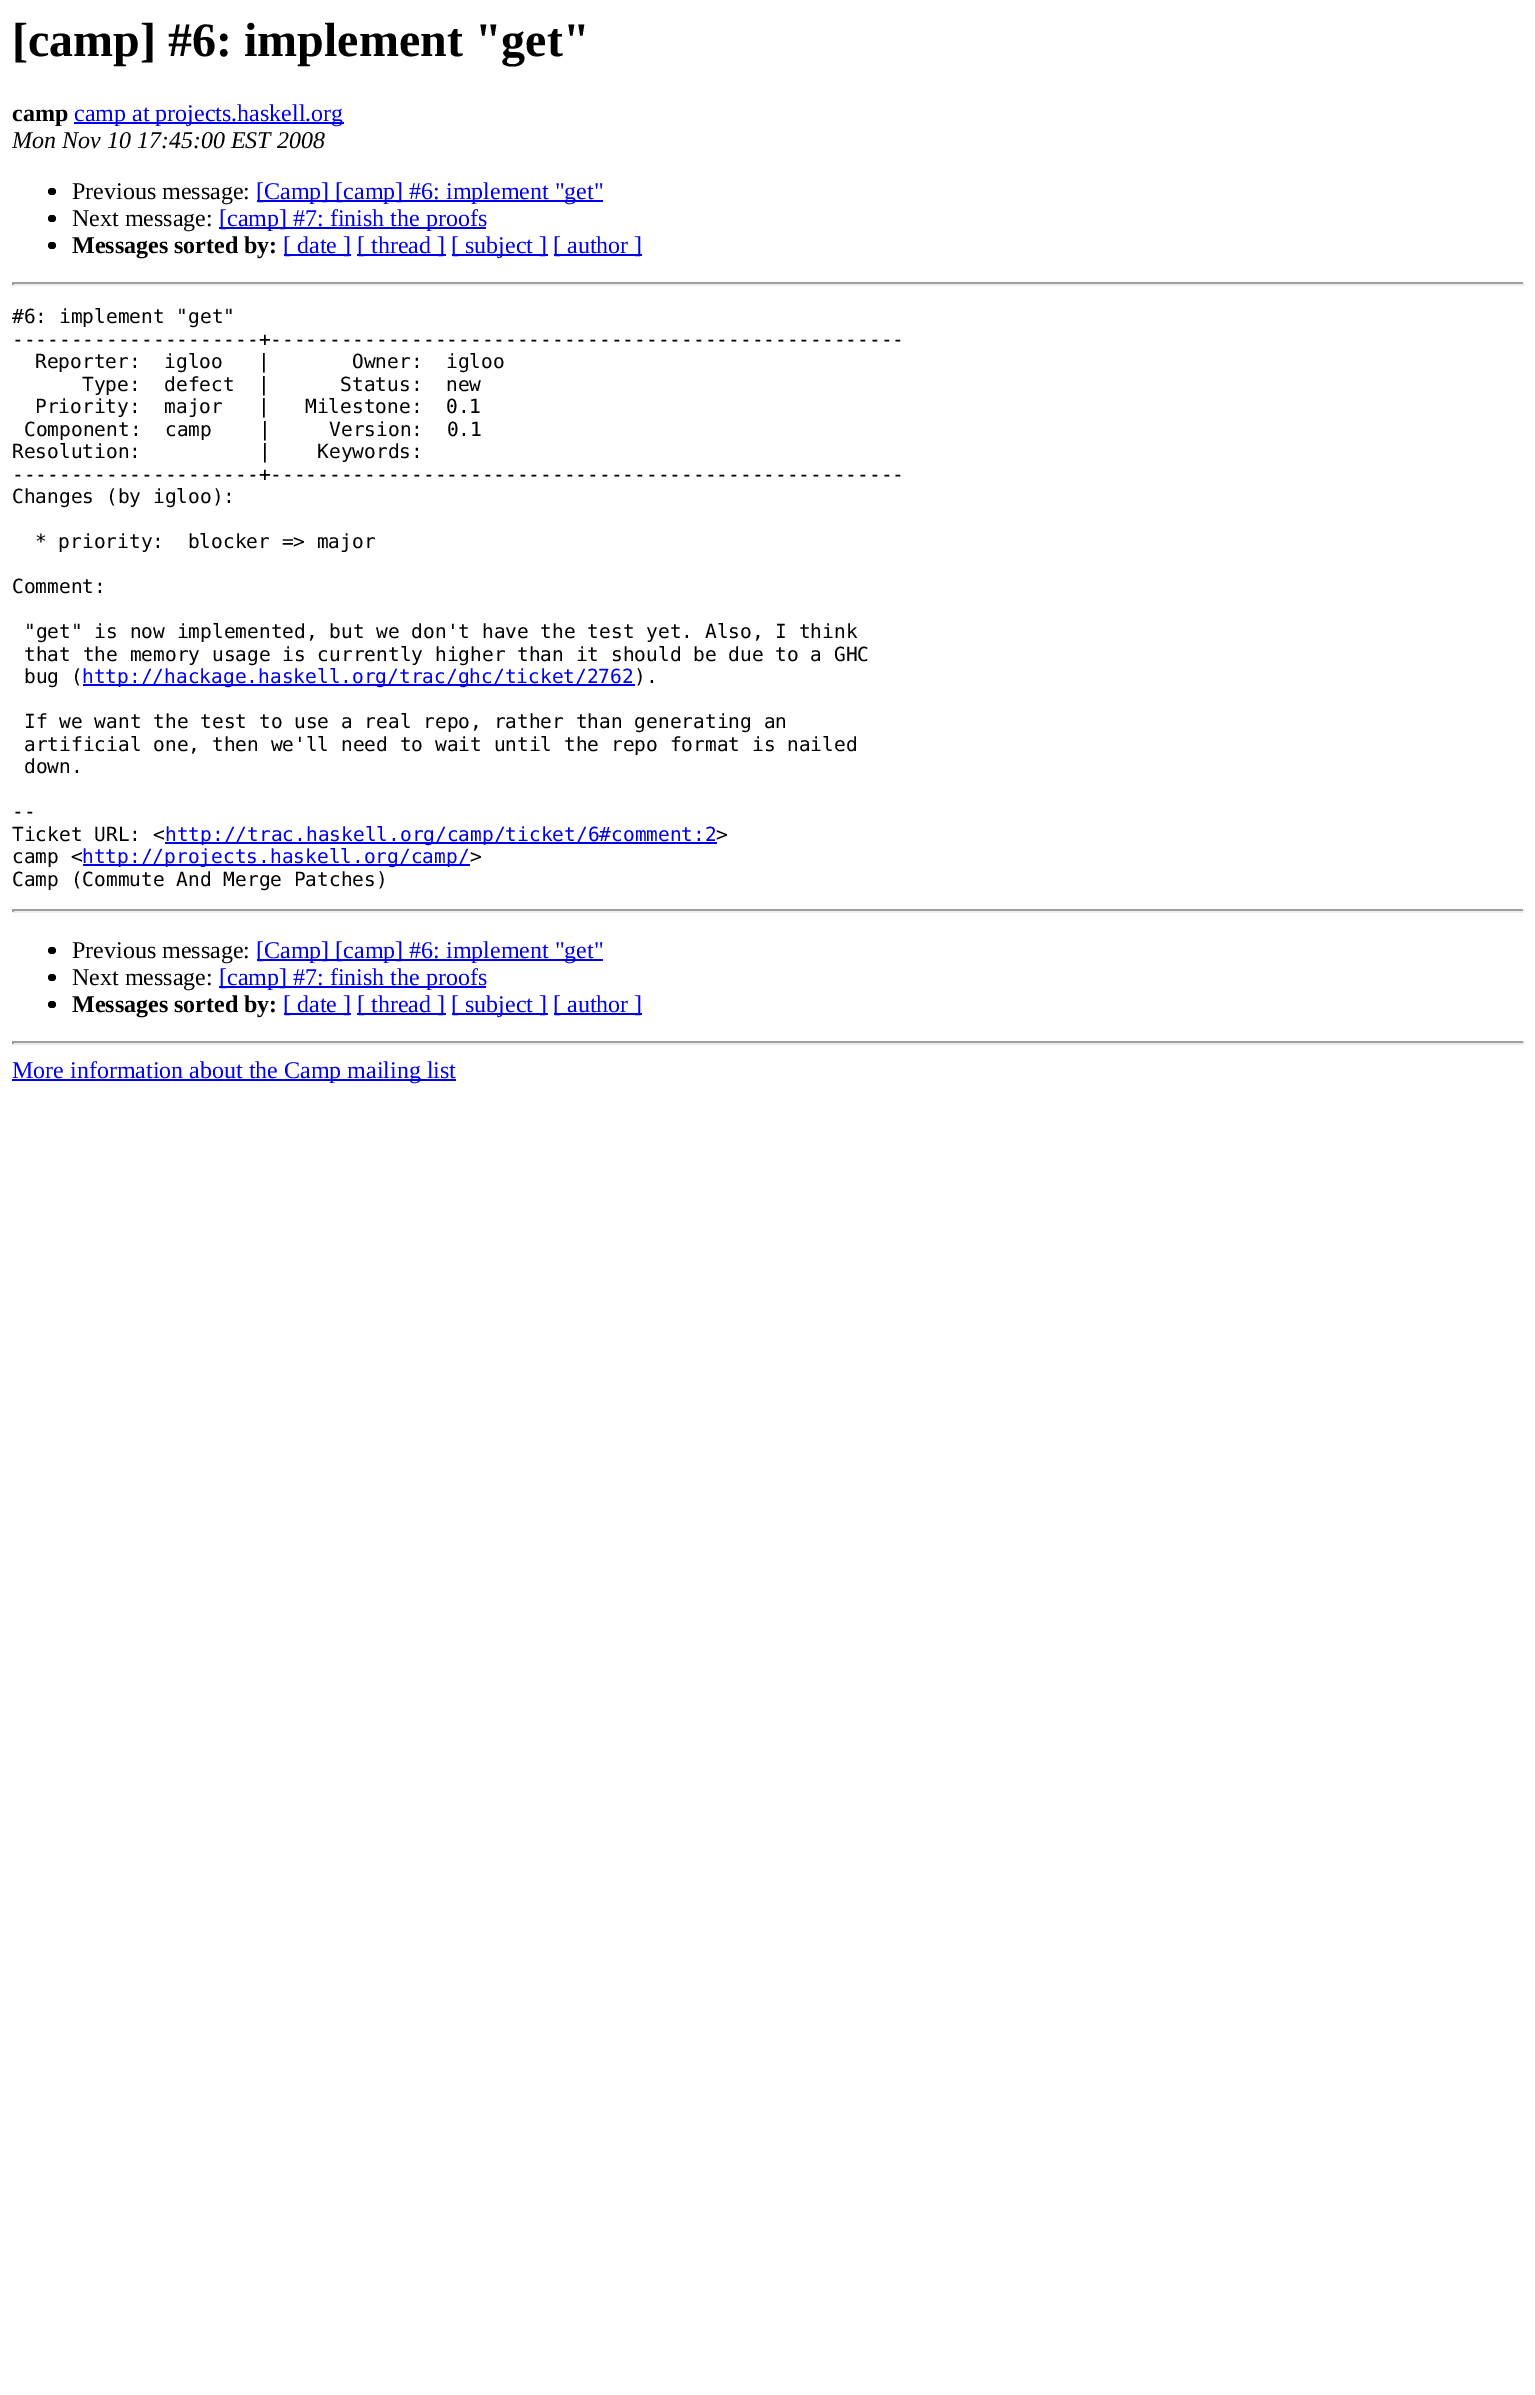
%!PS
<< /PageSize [1535 2395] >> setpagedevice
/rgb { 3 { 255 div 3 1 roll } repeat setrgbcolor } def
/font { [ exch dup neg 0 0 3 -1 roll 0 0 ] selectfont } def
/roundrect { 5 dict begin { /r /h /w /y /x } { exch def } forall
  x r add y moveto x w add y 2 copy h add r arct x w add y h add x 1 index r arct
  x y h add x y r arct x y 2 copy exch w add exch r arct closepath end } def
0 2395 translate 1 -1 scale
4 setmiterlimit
255 255 255 rgb
0 0 1535 2395 rectfill
0 0 238 rgb
74 122 270 2 rectfill
0 0 0 rgb
48 188 8 7 3.5 roundrect fill
0 0 238 rgb
257 200 346 2 rectfill
0 0 0 rgb
48 215 8 7 3.5 roundrect fill
0 0 238 rgb
219 227 267 2 rectfill
0 0 0 rgb
48 242 8 7 3.5 roundrect fill
[
  [284 254 67 2 0 0 238]
  [357 254 89 2 0 0 238]
  [452 254 96 2 0 0 238]
  [554 254 88 2 0 0 238]
  [12 282 1512 2 159 159 159]
  [1523 282 2 3 238 238 238]
  [12 284 1512 2 238 238 238]
  [12 282 2 3 159 159 159]
  [83 684 552 2 0 0 238]
  [165 842 552 2 0 0 238]
  [83 864 387 2 0 0 238]
  [12 909 1512 2 159 159 159]
  [1523 909 2 3 238 238 238]
  [12 911 1512 2 238 238 238]
  [12 909 2 3 159 159 159]
] { aload pop rgb rectfill } forall
0 0 0 rgb
48 947 8 7 3.5 roundrect fill
0 0 238 rgb
257 959 346 2 rectfill
0 0 0 rgb
48 974 8 7 3.5 roundrect fill
0 0 238 rgb
219 986 267 2 rectfill
0 0 0 rgb
48 1001 8 7 3.5 roundrect fill
[
  [284 1013 67 2 0 0 238]
  [357 1013 89 2 0 0 238]
  [452 1013 96 2 0 0 238]
  [554 1013 88 2 0 0 238]
  [12 1041 1512 2 159 159 159]
  [1523 1041 2 3 238 238 238]
  [12 1043 1512 2 238 238 238]
  [12 1041 2 3 159 159 159]
  [12 1079 444 2 0 0 238]
] { aload pop rgb rectfill } forall
/LiberationSerif-Bold 48 font
0 0 0 rgb
12 56 moveto ([camp] #6: implement "get") show
/LiberationSerif-Bold 24 font
12 121 moveto (camp) show
/LiberationSerif-Regular 24 font
0 0 238 rgb
74 121 moveto (camp at projects.haskell.org) show
/LiberationSerif-Italic 24 font
0 0 0 rgb
12 148 moveto (Mon Nov 10 17:45:00 EST 2008) show
/LiberationSerif-Regular 24 font
72 199 moveto (Previous message:) show
0 0 238 rgb
256 199 moveto ([Camp] [camp] #6: implement "get") show
0 0 0 rgb
72 226 moveto (Next message:) show
0 0 238 rgb
219 226 moveto ([camp] #7: finish the proofs) show
/LiberationSerif-Bold 24 font
0 0 0 rgb
72 253 moveto (Messages sorted by:) show
/LiberationSerif-Regular 24 font
0 0 238 rgb
[
  [([ date ]) 283 253]
  [([ thread ]) 357 253]
  [([ subject ]) 451 253]
  [([ author ]) 553 253]
] { aload pop moveto show } forall
/DejaVuSansMono-Regular 19.5 font
0 0 0 rgb
[
  [(#6: implement "get") 12 323]
  [(---------------------+------------------------------------------------------) 12 346]
  [(Reporter:  igloo   |       Owner:  igloo) 35 368]
  [(Type:  defect  |      Status:  new) 82 391]
  [(Priority:  major   |   Milestone:  0.1) 35 413]
  [(Component:  camp    |     Version:  0.1) 24 436]
  [(Resolution:          |    Keywords:) 12 458]
  [(---------------------+------------------------------------------------------) 12 481]
  [(Changes \(by igloo\):) 12 503]
  [(* priority:  blocker => major) 35 548]
  [(Comment:) 12 593]
  [("get" is now implemented, but we don't have the test yet. Also, I think) 24 638]
  [(that the memory usage is currently higher than it should be due to a GHC) 24 661]
  [(bug \() 24 683]
] { aload pop moveto show } forall
0 0 238 rgb
82 683 moveto (http://hackage.haskell.org/trac/ghc/ticket/2762) show
0 0 0 rgb
[
  [(\).) 634 683]
  [(If we want the test to use a real repo, rather than generating an) 24 728]
  [(artificial one, then we'll need to wait until the repo format is nailed) 24 751]
  [(down.) 24 773]
  [(--) 12 818]
  [(Ticket URL: <) 12 841]
] { aload pop moveto show } forall
0 0 238 rgb
165 841 moveto (http://trac.haskell.org/camp/ticket/6#comment:2) show
0 0 0 rgb
716 841 moveto (>) show
12 863 moveto (camp <) show
0 0 238 rgb
82 863 moveto (http://projects.haskell.org/camp/) show
0 0 0 rgb
470 863 moveto (>) show
12 886 moveto (Camp \(Commute And Merge Patches\)) show
/LiberationSerif-Regular 24 font
72 958 moveto (Previous message:) show
0 0 238 rgb
256 958 moveto ([Camp] [camp] #6: implement "get") show
0 0 0 rgb
72 985 moveto (Next message:) show
0 0 238 rgb
219 985 moveto ([camp] #7: finish the proofs) show
/LiberationSerif-Bold 24 font
0 0 0 rgb
72 1012 moveto (Messages sorted by:) show
/LiberationSerif-Regular 24 font
0 0 238 rgb
[
  [([ date ]) 283 1012]
  [([ thread ]) 357 1012]
  [([ subject ]) 451 1012]
  [([ author ]) 553 1012]
  [(More information about the Camp mailing list) 12 1078]
] { aload pop moveto show } forall
showpage
